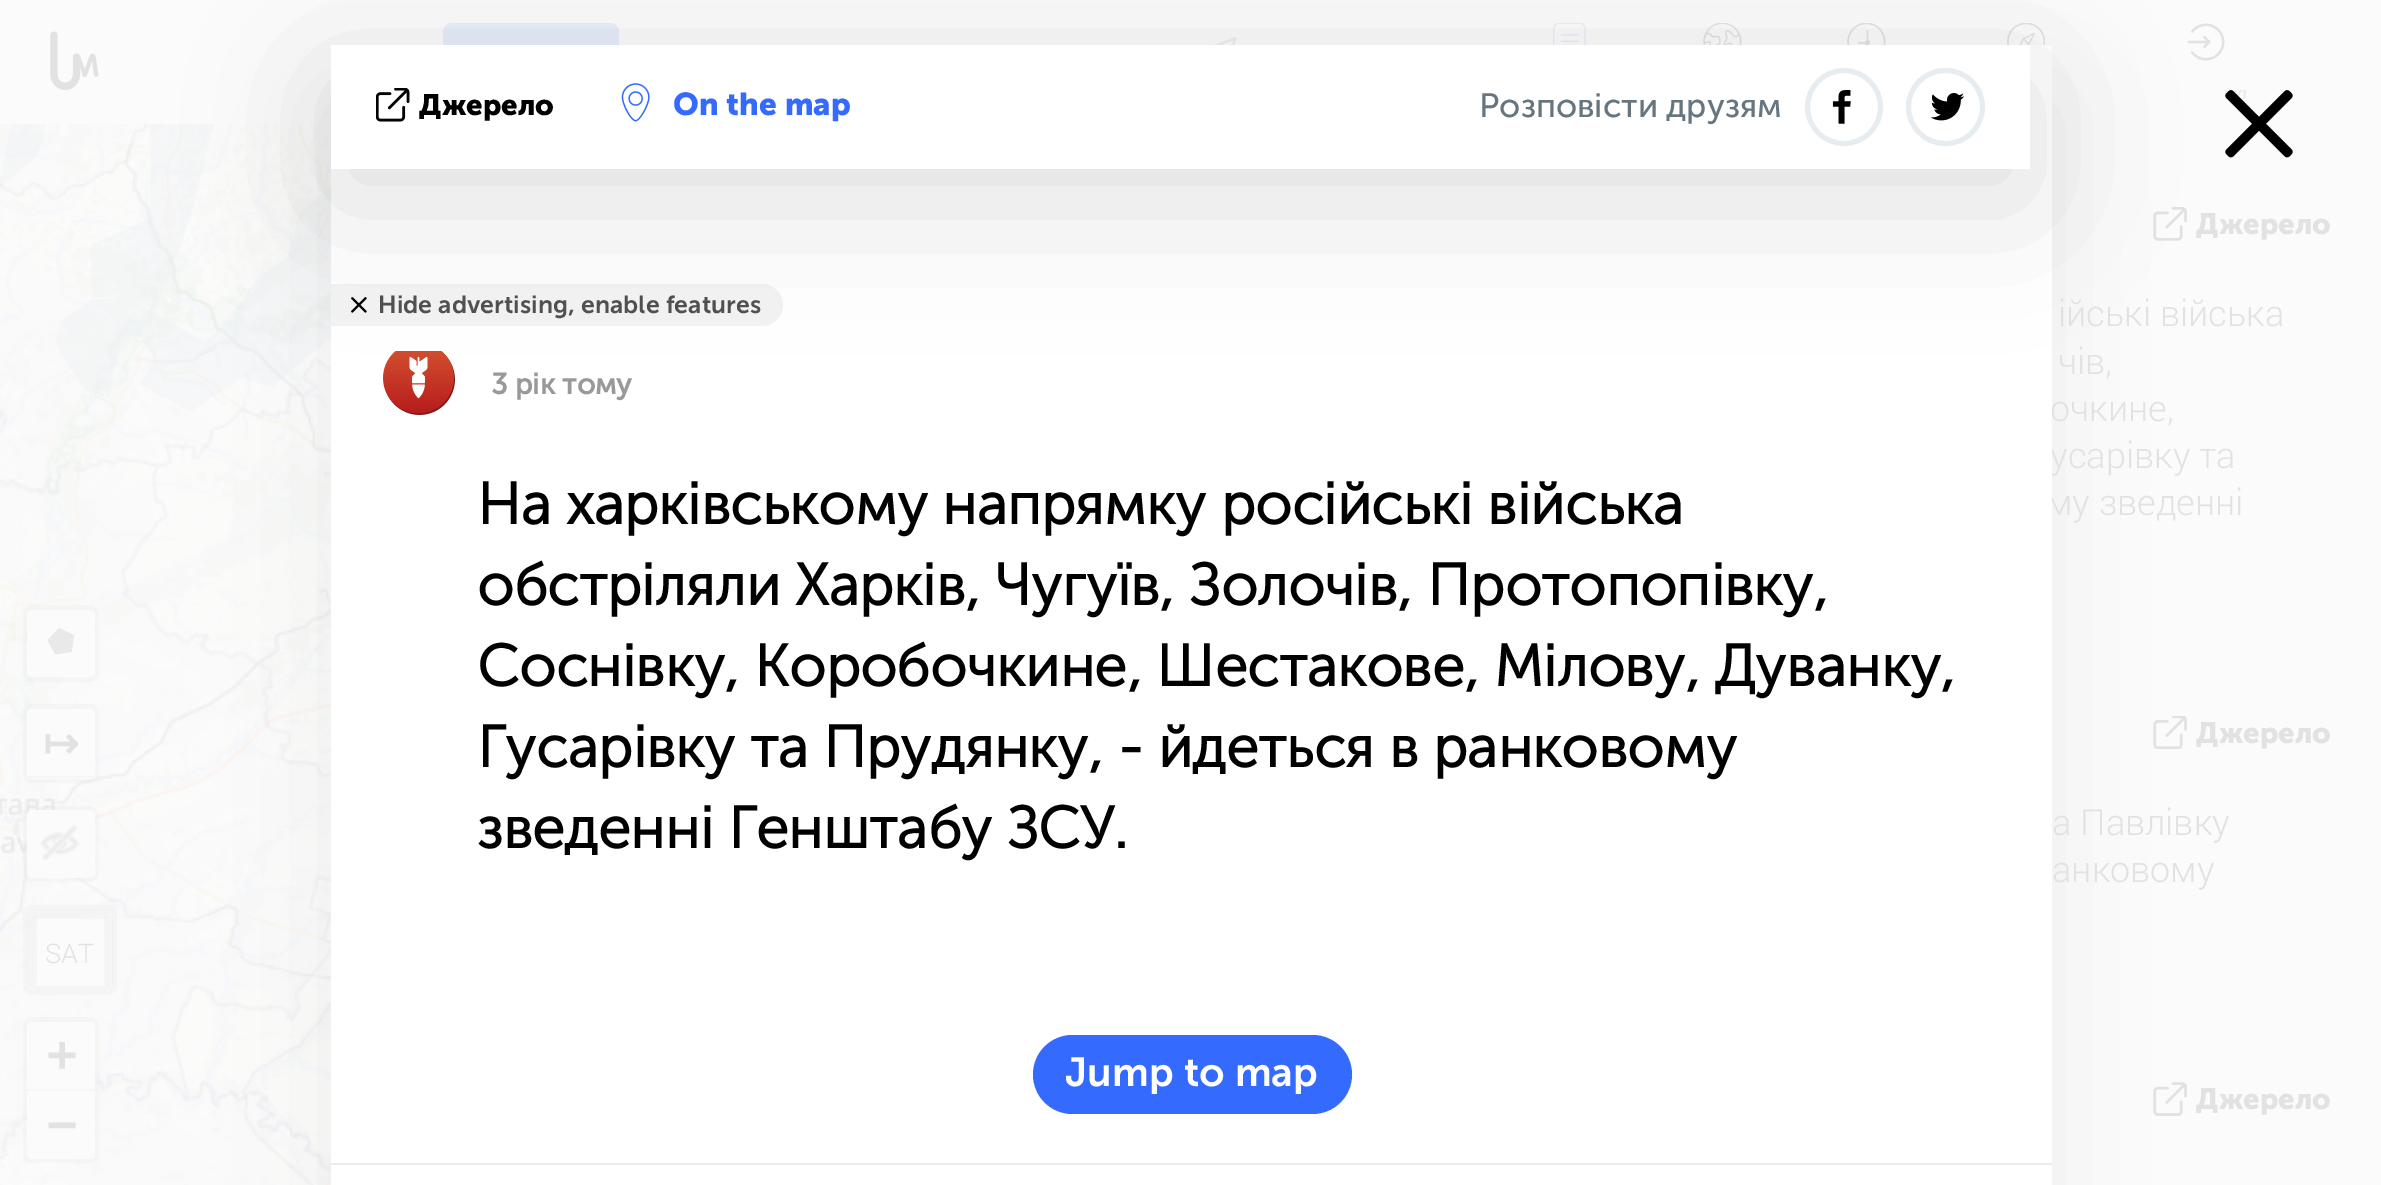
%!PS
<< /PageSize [2381 1185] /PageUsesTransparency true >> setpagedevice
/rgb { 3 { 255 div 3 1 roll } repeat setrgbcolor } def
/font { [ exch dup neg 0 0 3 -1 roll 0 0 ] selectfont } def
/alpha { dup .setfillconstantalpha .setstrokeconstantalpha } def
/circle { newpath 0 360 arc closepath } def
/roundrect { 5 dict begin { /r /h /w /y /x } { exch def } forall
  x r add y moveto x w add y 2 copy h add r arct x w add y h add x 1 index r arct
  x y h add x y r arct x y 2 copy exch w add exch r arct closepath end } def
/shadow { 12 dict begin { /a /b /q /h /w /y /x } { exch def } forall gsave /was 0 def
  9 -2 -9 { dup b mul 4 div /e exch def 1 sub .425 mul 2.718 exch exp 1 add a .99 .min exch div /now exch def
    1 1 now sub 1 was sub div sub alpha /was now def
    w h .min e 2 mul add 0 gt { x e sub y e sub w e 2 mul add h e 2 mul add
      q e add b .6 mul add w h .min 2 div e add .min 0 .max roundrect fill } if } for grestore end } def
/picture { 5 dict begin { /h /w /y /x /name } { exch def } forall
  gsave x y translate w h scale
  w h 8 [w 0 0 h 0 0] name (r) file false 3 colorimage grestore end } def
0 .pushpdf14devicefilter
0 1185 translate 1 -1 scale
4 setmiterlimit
255 255 255 rgb
0 0 2381 1185 rectfill
251 251 251 rgb
0 0 1494 124 rectfill
231 237 251 rgb
443 23 176 78 9 roundrect fill
(img/9.rgb) 1214 36 23 9 picture
(img/10.rgb) 0 124 245 542 picture
(img/11.rgb) 245 124 86 542 picture
(img/12.rgb) 0 666 245 519 picture
(img/13.rgb) 245 666 86 519 picture
(img/14.rgb) 0 124 331 288 picture
251 251 251 rgb
1494 0 887 1185 rectfill
(img/17.rgb) 1553 23 33 22 picture
(img/18.rgb) 1703 23 39 22 picture
(img/19.rgb) 1847 23 39 22 picture
(img/20.rgb) 2007 23 38 22 picture
(img/21.rgb) 2187 23 38 38 picture
(img/22.rgb) 2153 207 34 34 picture
(img/23.rgb) 2153 716 34 33 picture
(img/24.rgb) 2153 1082 34 34 picture
0 0 0 rgb
331 101 1721 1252 0 56 0.05 shadow
(img/5.rgb) 2225 90 68 68 picture
(img/8.rgb) 50 31 49 59 picture
0.2 alpha
226 226 226 rgb
5 setlinewidth
25.5 607.5 71 72 6.5 roundrect stroke
1 alpha
251 251 251 rgb
27 610 68 67 5 roundrect fill
(img/15.rgb) 47 627 28 28 picture
0.2 alpha
226 226 226 rgb
25.5 706.5 71 74 6.5 roundrect stroke
1 alpha
251 251 251 rgb
32 709 moveto 90 709 lineto 93 709 95 711 95 714 curveto 95 779 lineto 27 779 lineto 27 714 lineto 27 711 29 709 32 709 curveto closepath fill
246 246 246 rgb
27 776 68 2 rectfill
0.2 alpha
226 226 226 rgb
25.5 808.5 71 71 6.5 roundrect stroke
1 alpha
251 251 251 rgb
27 810 68 68 5 roundrect fill
(img/16.rgb) 40 825 40 36 picture
0.2 alpha
226 226 226 rgb
25.5 907.5 89 85 6.5 roundrect stroke
29.5 911.5 81 76 6.5 roundrect stroke
1 alpha
251 251 251 rgb
36 918 moveto 104 918 lineto 104 986 lineto 36 986 lineto 36 981 lineto closepath fill
0.2 alpha
[
  [34 914 72 5 226 226 226]
  [104 916 5 67 226 226 226]
  [32 916 5 67 226 226 226]
] { aload pop rgb rectfill } forall
25.5 1019.5 71 141 6.5 roundrect stroke
1 alpha
251 251 251 rgb
32 1022 moveto 90 1022 lineto 93 1022 95 1024 95 1027 curveto 95 1091 lineto 27 1091 lineto 27 1027 lineto 27 1024 29 1022 32 1022 curveto closepath fill
246 246 246 rgb
27 1089 68 2 rectfill
251 251 251 rgb
27 1091 moveto 95 1091 lineto 95 1154 lineto 95 1157 93 1159 90 1159 curveto 32 1159 lineto 29 1159 27 1157 27 1154 curveto closepath fill
/DejaVuSans-Bold 43 font
226 226 226 rgb
43 758 moveto (↦) show
/Roboto-Light 27 font
45 963 moveto (SAT) show
/DejaVuSansMono-Bold 50 font
47 1071 moveto (+) show
47 1141 moveto (−) show
/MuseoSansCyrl-Bold 29.25 font
2196 234 moveto (Джерело) show
/Roboto-Light 36 font
[
  [(ійські війська) 2058 326]
  [(чів,) 2058 374]
  [(очкине,) 2050 421]
  [(усарівку та) 2050 468]
  [(му зведенні) 2046 515]
] { aload pop moveto show } forall
255 255 255 rgb
331 45 1721 1140 rectfill
243 243 243 rgb
331 284 moveto 762 284 lineto 773.5 284 783 293.5 783 305 curveto 783 316.5 773.5 326 762 326 curveto 331 326 lineto closepath fill
(img/6.rgb) 351 297 16 16 picture
(img/7.rgb) 383 351 72 64 picture
16 15 15 rgb
331 79 1699 124 0 67.5 0.14 shadow
255 255 255 rgb
331 45 1699 124 rectfill
(img/4.rgb) 1931 93 33 28 picture
230 236 239 rgb
1908.5 70.5 74 73 36.5 roundrect stroke
(img/3.rgb) 1832 90 19 34 picture
1844 107 36.5 circle stroke
/MuseoSansCyrl-Regular 33.75 font
102 117 127 rgb
1479 117 moveto (Розповісти друзям) show
(img/2.rgb) 621 83 29 39 picture
(img/1.rgb) 376 88 34 34 picture
/MuseoSansCyrl-Bold 31.5 font
52 106 254 rgb
673 115 moveto (On the map) show
/MuseoSansCyrl-Bold 29.25 font
0 0 0 rgb
419 115 moveto (Джерело) show
52 106 254 rgb
1033 1035 319 79 39.5 roundrect fill
/MuseoSansCyrl-SemiBold 40.5 font
255 255 255 rgb
1065 1086 moveto (Jump to map) show
236 236 236 rgb
331 1163 1721 2 rectfill
/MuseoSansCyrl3-Bold 29.25 font
153 153 153 rgb
491 394 moveto (3 рік тому) show
/MuseoSansCyrl-SemiBold 24.75 font
80 80 80 rgb
378 313 moveto (Hide advertising, enable features) show
/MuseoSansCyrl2-Bold 58.5 font
0 0 0 rgb
[
  [(зведенні Генштабу ЗСУ.) 477 848]
  [(Гусарівку та Прудянку, - йдеться в ранковому) 477 767]
  [(Соснівку, Коробочкине, Шестакове, Мілову, Дуванку,) 477 686]
  [(обстріляли Харків, Чугуїв, Золочів, Протопопівку,) 477 605]
  [(На харківському напрямку російські війська) 477 524]
] { aload pop moveto show } forall
/MuseoSansCyrl-Bold 29.25 font
226 226 226 rgb
2196 743 moveto (Джерело) show
/Roboto-Light 36 font
2052 835 moveto (а Павлівку) show
2052 882 moveto (анковому) show
/MuseoSansCyrl-Bold 29.25 font
2196 1109 moveto (Джерело) show
.poppdf14devicefilter showpage
